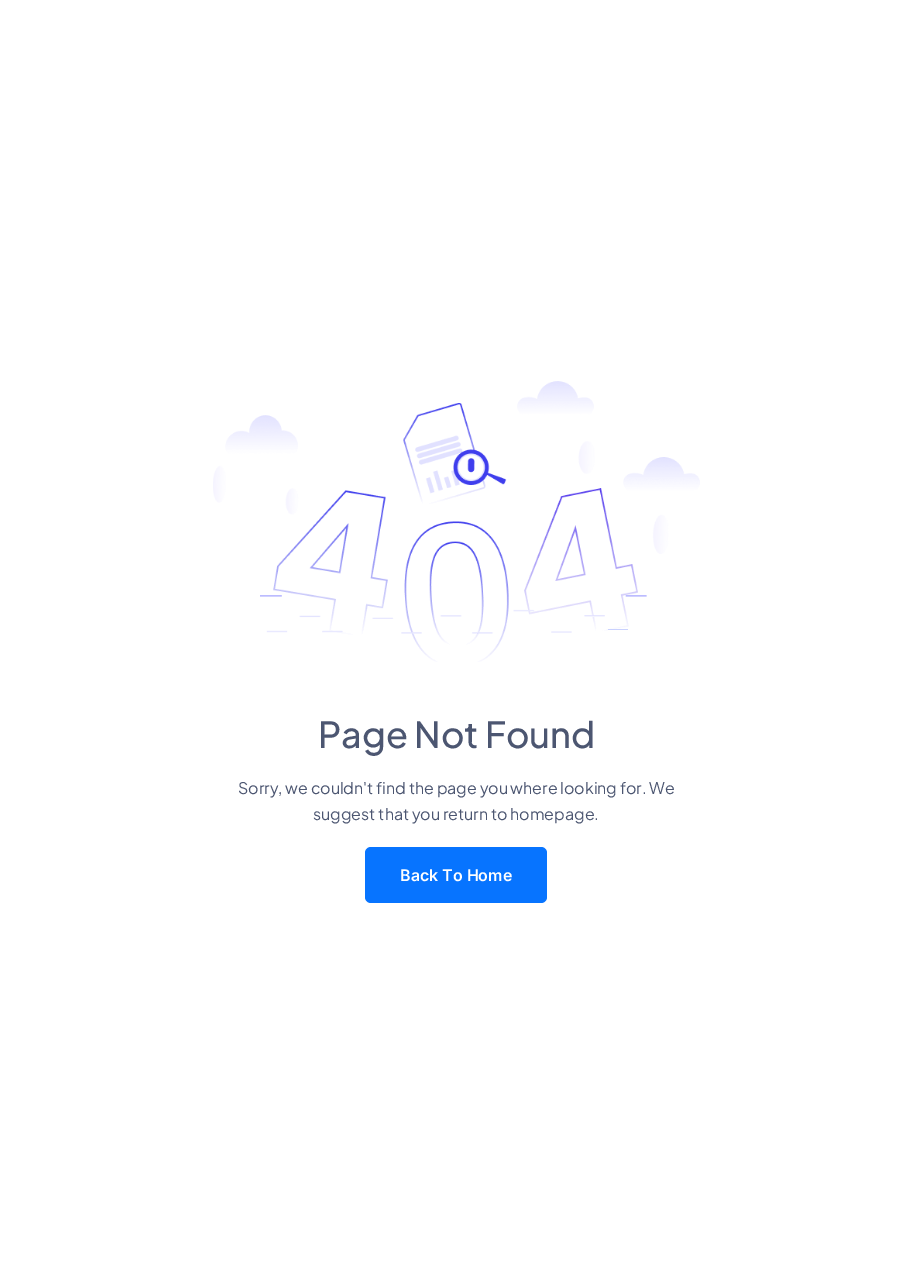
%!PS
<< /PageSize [912 1284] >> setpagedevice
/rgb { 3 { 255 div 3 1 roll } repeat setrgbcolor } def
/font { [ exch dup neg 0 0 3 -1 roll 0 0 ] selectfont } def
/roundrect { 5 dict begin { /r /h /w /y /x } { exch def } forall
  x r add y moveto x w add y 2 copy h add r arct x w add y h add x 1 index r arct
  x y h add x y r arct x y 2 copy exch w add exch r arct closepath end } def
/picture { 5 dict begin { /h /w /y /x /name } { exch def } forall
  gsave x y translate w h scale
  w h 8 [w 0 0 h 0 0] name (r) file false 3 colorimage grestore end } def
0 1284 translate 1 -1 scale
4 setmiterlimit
255 255 255 rgb
0 0 912 1284 rectfill
(img/1.rgb) 213 381 487 281 picture
7 116 255 rgb
365 847 182 56 6 roundrect fill
/PlusJakartaSans-Medium 36 font
76 86 113 rgb
318 748 moveto (Page Not Found) show
/PlusJakartaSans-Regular 16 font
238 794 moveto (Sorry, we couldn't find the page you where looking for. We) show
313 820 moveto (suggest that you return to homepage.) show
/Inter-SemiBold 16 font
255 255 255 rgb
400 881 moveto (Back To Home) show
showpage
